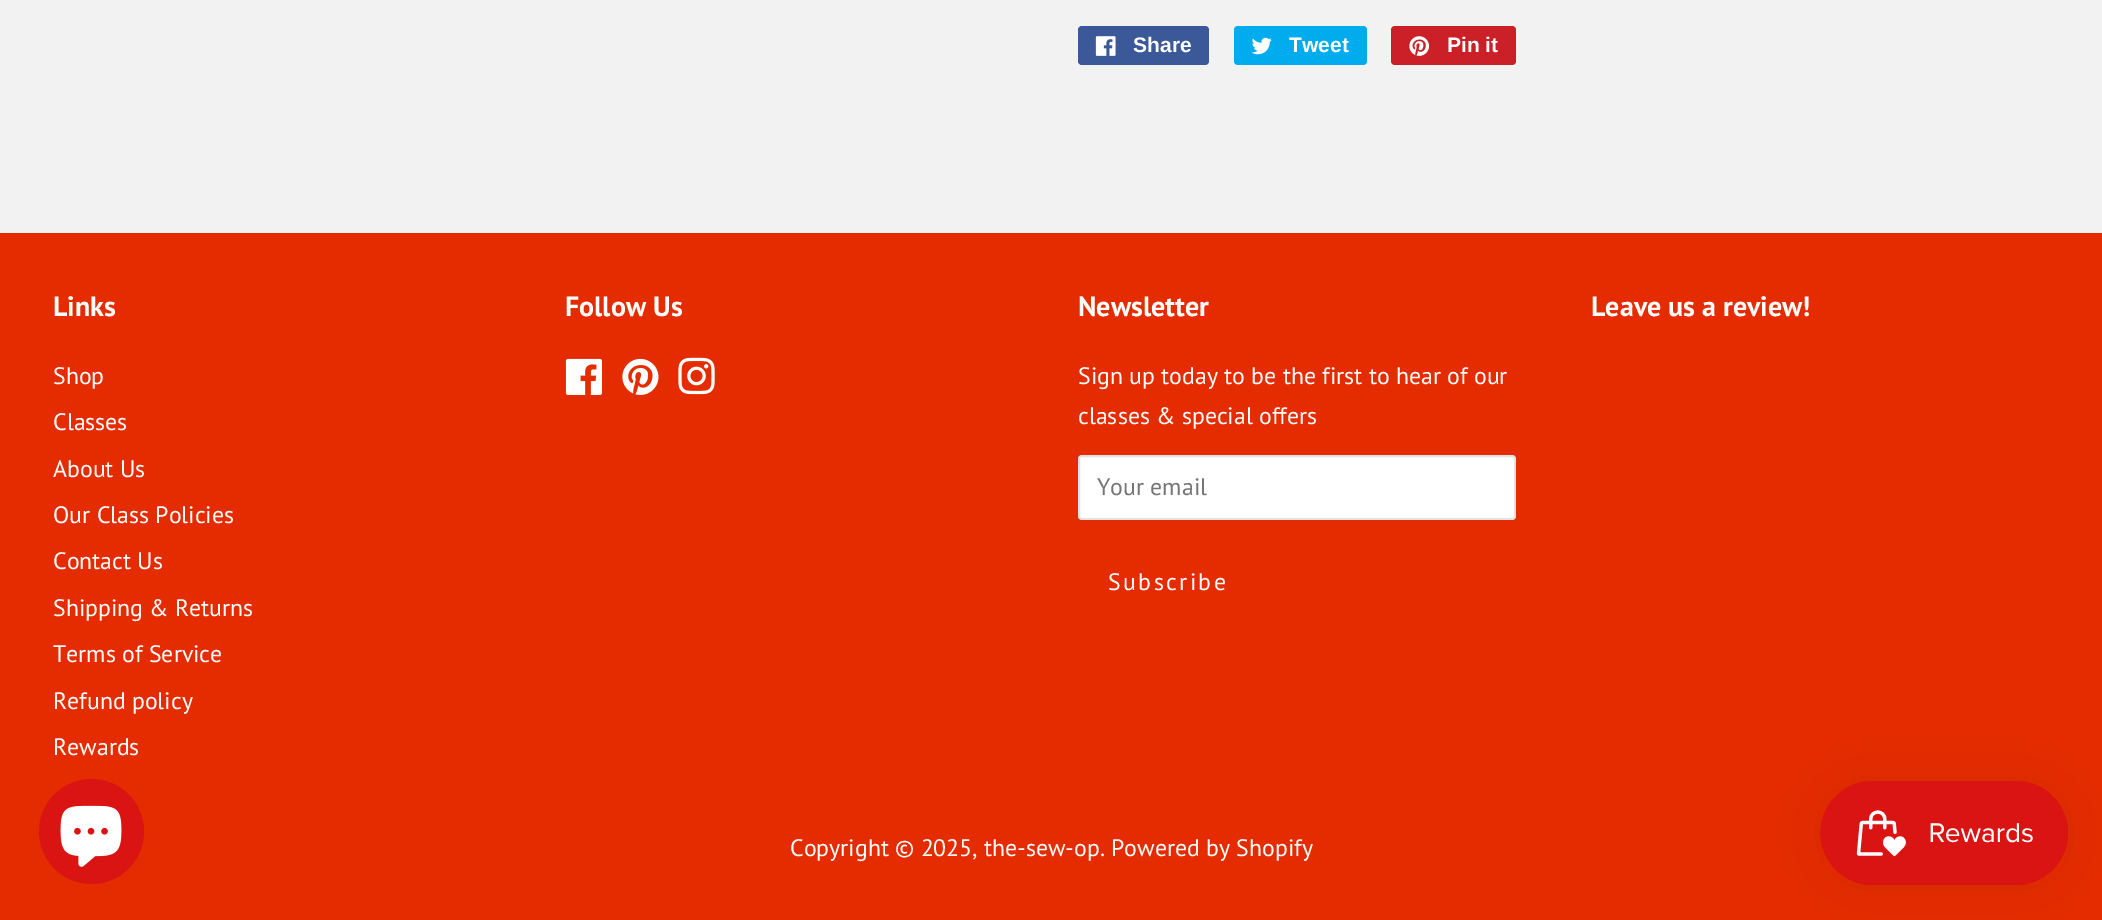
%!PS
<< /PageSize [2102 920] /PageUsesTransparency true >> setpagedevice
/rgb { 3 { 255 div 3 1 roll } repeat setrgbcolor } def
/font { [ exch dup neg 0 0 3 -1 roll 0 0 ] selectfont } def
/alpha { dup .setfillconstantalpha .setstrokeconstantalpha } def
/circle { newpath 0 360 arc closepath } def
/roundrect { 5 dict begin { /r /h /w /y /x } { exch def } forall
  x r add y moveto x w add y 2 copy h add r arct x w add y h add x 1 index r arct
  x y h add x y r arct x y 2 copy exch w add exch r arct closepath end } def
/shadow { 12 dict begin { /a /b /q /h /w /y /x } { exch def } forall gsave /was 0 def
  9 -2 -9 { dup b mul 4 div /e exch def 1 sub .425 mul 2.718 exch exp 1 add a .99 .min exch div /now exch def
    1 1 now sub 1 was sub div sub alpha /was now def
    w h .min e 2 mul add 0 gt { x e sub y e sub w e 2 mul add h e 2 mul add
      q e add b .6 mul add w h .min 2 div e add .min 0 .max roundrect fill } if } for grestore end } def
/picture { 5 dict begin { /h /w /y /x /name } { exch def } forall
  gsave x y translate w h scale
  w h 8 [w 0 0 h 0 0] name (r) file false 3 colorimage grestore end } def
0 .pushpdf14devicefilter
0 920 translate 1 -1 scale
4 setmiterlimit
242 242 242 rgb
0 0 2102 920 rectfill
59 89 152 rgb
1078 26 131 39 4 roundrect fill
(img/1.rgb) 1095 36 21 20 picture
0 172 237 rgb
1234 26 133 39 4 roundrect fill
(img/2.rgb) 1251 37 21 18 picture
203 32 39 rgb
1391 26 125 39 4 roundrect fill
(img/3.rgb) 1409 36 21 20 picture
228 44 0 rgb
0 233 2102 687 rectfill
(img/4.rgb) 565 358 37 37 picture
(img/5.rgb) 622 358 37 37 picture
(img/6.rgb) 678 357 37 38 picture
255 255 255 rgb
1078 455 438 65 4 roundrect fill
0.15 alpha
64 59 55 rgb
2 setlinewidth
1079 456 436 63 3 roundrect stroke
1 alpha
0 0 0 rgb
1820 781 249 105 52.5 22 0.05 shadow
(img/7.rgb) 1820 781 248 104 picture
218 19 19 rgb
91.5 831.5 52.5 circle fill
(img/8.rgb) 60 805 62 62 picture
/LiberationSans-Bold 21 font
255 255 255 rgb
[
  [(Share) 1133 52]
  [(Tweet) 1289 52]
  [(Pin it) 1447 52]
] { aload pop moveto show } forall
/PTSans-Bold 28 font
53 316 moveto (Links) show
/PTSans-Regular 23.8 font
[
  [(Shop) 53 384]
  [(Classes) 53 430]
  [(About Us) 53 477]
  [(Our Class Policies) 53 523]
  [(Contact Us) 53 569]
  [(Shipping & Returns) 53 616]
  [(Terms of Service) 53 662]
  [(Refund policy) 53 709]
  [(Rewards) 53 755]
] { aload pop moveto show } forall
/PTSans-Bold 28 font
565 316 moveto (Follow Us) show
1078 316 moveto (Newsletter) show
/PTSans-Regular 23.8 font
1078 384 moveto (Sign up today to be the first to hear of our) show
1078 424 moveto (classes & special offers) show
117 117 117 rgb
1097 495 moveto (Your email) show
255 255 255 rgb
1108 590 moveto 2.4 0 (Subscribe) ashow
/PTSans-Bold 28 font
1591 316 moveto (Leave us a review!) show
/PTSans-Regular 23.8 font
790 856 moveto (Copyright © 2025, the-sew-op. Powered by Shopify) show
.poppdf14devicefilter showpage
